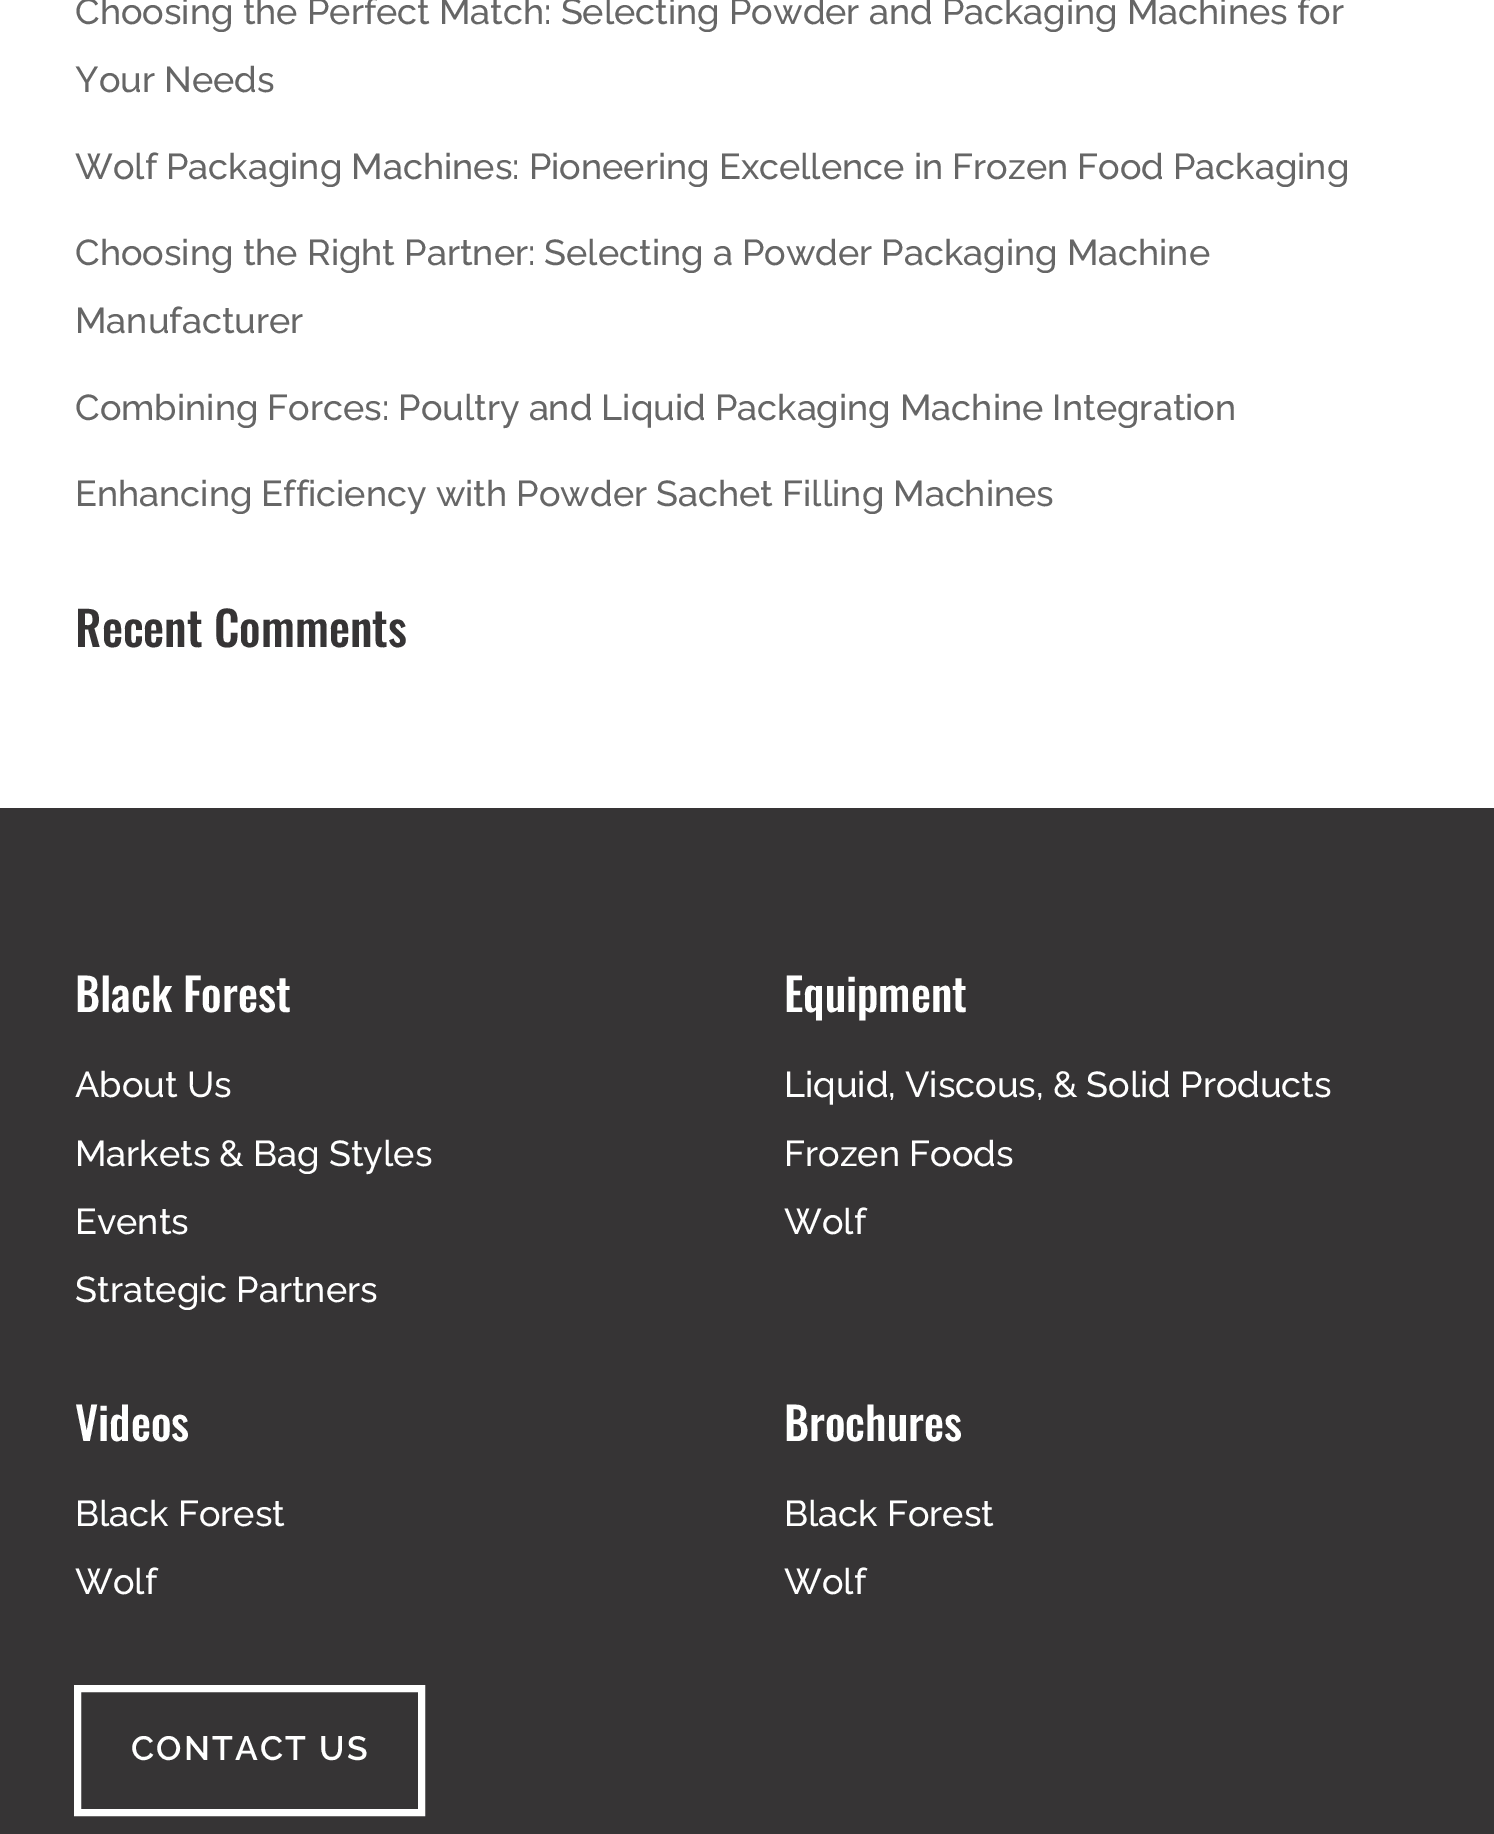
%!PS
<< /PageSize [1494 1834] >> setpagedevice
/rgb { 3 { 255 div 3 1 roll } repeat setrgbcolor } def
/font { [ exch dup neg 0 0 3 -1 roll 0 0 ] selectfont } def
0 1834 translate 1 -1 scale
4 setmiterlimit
255 255 255 rgb
0 0 1494 1834 rectfill
54 52 53 rgb
0 808 1494 1026 rectfill
255 255 255 rgb
7 setlinewidth
77.5 1688.5 344 124 rectstroke
/Raleway-Medium 36 font
102 102 102 rgb
[
  [(Choosing the Perfect Match: Selecting Powder and Packaging Machines for) 75 24]
  [(Your Needs) 75 92]
  [(Wolf Packaging Machines: Pioneering Excellence in Frozen Food Packaging) 75 179]
  [(Choosing the Right Partner: Selecting a Powder Packaging Machine) 75 265]
  [(Manufacturer) 75 333]
  [(Combining Forces: Poultry and Liquid Packaging Machine Integration) 75 420]
  [(Enhancing Efficiency with Powder Sachet Filling Machines) 75 506]
] { aload pop moveto show } forall
/Oswald-Medium 47.25 font
54 52 53 rgb
75 647 moveto (Recent Comments) show
/Oswald-Medium 45 font
255 255 255 rgb
75 1012 moveto (Black Forest) show
/Raleway-Medium 36 font
[
  [(About Us) 75 1097]
  [(Markets & Bag Styles) 75 1166]
  [(Events) 75 1234]
  [(Strategic Partners) 75 1302]
] { aload pop moveto show } forall
/Oswald-Medium 45 font
784 1012 moveto (Equipment) show
/Raleway-Medium 36 font
[
  [(Liquid, Viscous, & Solid Products) 784 1097]
  [(Frozen Foods) 784 1166]
  [(Wolf) 784 1234]
] { aload pop moveto show } forall
/Oswald-Medium 45 font
75 1441 moveto (Videos) show
/Raleway-Medium 36 font
75 1526 moveto (Black Forest) show
75 1594 moveto (Wolf) show
/Oswald-Medium 45 font
784 1441 moveto (Brochures) show
/Raleway-Medium 36 font
784 1526 moveto (Black Forest) show
784 1594 moveto (Wolf) show
/Raleway-SemiBold 33.75 font
131 1760 moveto 2.25 0 (CONTACT US) ashow
showpage
